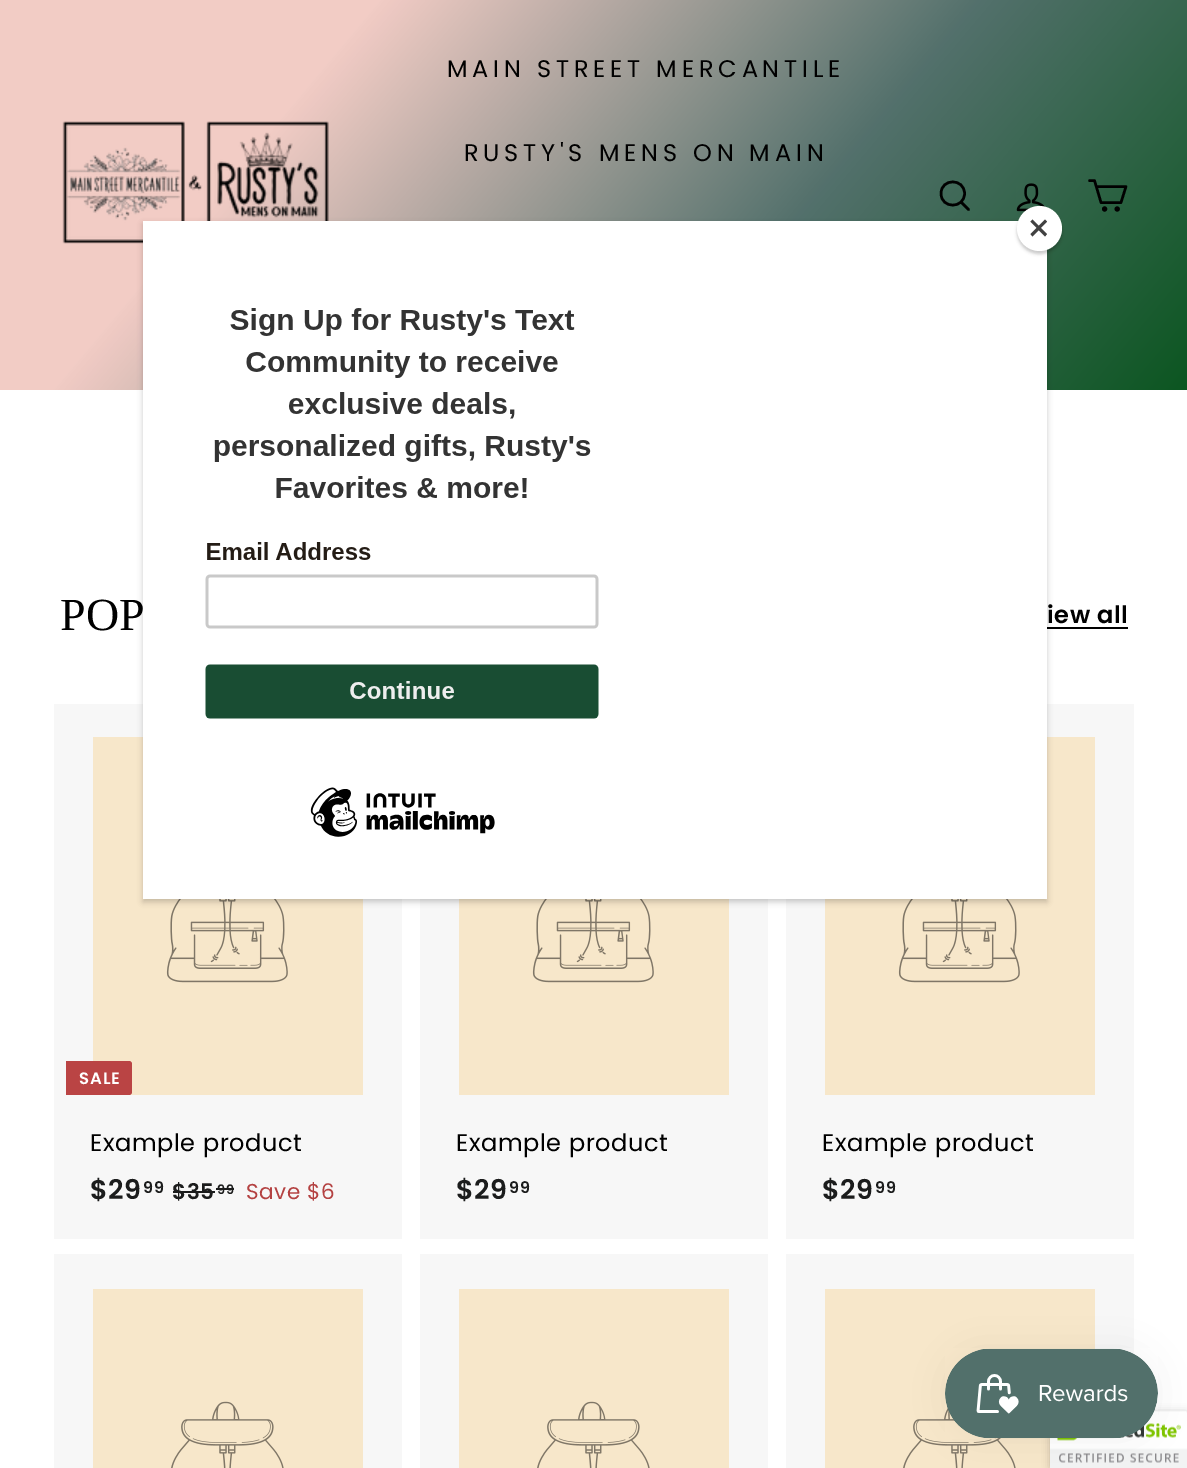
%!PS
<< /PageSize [1187 1468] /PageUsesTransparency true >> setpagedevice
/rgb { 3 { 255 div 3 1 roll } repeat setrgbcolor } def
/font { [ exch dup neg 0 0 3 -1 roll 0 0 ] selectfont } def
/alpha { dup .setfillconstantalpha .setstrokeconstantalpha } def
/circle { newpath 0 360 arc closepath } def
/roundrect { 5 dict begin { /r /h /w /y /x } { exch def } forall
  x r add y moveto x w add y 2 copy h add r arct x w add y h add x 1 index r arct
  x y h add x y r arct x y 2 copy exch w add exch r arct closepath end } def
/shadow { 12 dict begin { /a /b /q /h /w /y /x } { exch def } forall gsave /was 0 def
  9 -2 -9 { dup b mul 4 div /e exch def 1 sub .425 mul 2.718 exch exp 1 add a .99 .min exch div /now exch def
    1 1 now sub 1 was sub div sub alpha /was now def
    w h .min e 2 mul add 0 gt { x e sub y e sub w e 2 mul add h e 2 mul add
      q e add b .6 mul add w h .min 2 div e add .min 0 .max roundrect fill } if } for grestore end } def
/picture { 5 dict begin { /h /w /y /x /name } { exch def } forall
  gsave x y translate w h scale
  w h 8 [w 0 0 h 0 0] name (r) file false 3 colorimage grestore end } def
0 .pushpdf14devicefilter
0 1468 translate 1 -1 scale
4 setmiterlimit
255 255 255 rgb
0 0 1187 1468 rectfill
[
  [786 1254 348 214 247 247 247]
  [420 1254 348 214 247 247 247]
  [54 1254 348 214 247 247 247]
  [786 704 348 535 247 247 247]
  [420 899 348 340 247 247 247]
  [54 704 348 535 247 247 247]
] { aload pop rgb rectfill } forall
gsave 0 0 moveto 1187 0 lineto 1187 390 lineto 0 390 lineto closepath clip newpath
<< /ShadingType 2 /ColorSpace /DeviceRGB /Coords [149 -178 1039 568] /Extend [true true] /Function << /FunctionType 3 /Domain [0 1] /Functions [<< /FunctionType 2 /Domain [0 1] /C0 [0.949 0.8 0.773] /C1 [0.949 0.8 0.773] /N 1 >> << /FunctionType 2 /Domain [0 1] /C0 [0.949 0.8 0.773] /C1 [0.322 0.439 0.42] /N 1 >> << /FunctionType 2 /Domain [0 1] /C0 [0.322 0.439 0.42] /C1 [0.047 0.337 0.129] /N 1 >>] /Bounds [0.25 0.65] /Encode [0 1 0 1 0 1] >> >> shfill grestore
(img/1.rgb) 62 121 267 123 picture
0 0 0 rgb
2.5 setlinewidth
1 setlinecap
1 setlinejoin
964.5 193.5 moveto 964.5 209 941 209 941 193.5 curveto 941 178 964.5 178 964.5 193.5 curveto closepath 968.5 209.5 moveto 961 202 lineto stroke
(img/2.rgb) 1016 183 29 29 picture
1096.5 186.5 moveto 1126 186.5 lineto 1121 202.5 lineto 1101 202.5 lineto 1094.5 180.5 lineto 1089.5 180.5 lineto stroke
0 setlinecap
0 setlinejoin
1104.6 209 1.3 circle stroke
1117.2 209 1.3 circle stroke
1047 627 81 2 rectfill
247 231 202 rgb
93 737 270 358 rectfill
(img/3.rgb) 166 899 122 84 picture
186 68 68 rgb
66 1061 moveto 129 1061 lineto 130.5 1061 132 1062.5 132 1064 curveto 132 1092 lineto 132 1093.5 130.5 1095 129 1095 curveto 66 1095 lineto closepath fill
[
  [173 1191 42 2 27 28 28]
  [216 1188 18 2 27 28 28]
  [459 899 270 196 247 231 202]
] { aload pop rgb rectfill } forall
(img/3.rgb) 532 899 122 84 picture
825 737 270 358 rectfill
(img/3.rgb) 898 899 122 84 picture
93 1289 270 179 rectfill
(img/4.rgb) 171 1401 113 67 picture
459 1289 270 179 rectfill
(img/4.rgb) 537 1401 113 67 picture
825 1289 270 179 rectfill
(img/5.rgb) 903 1408 113 60 picture
0 0 0 rgb
143 224 904 678 0 3 0.2 shadow
(img/6.rgb) 143 221 904 678 picture
1017 209 45 45 22.5 1.5 0.2 shadow
255 255 255 rgb
1039.5 228.5 22.5 circle fill
65 65 65 rgb
1045 219.5 moveto 1047 221.5 lineto 1032.5 236.5 lineto 1030.5 234 lineto closepath fill
1030.5 221.5 moveto 1032.5 219.5 lineto 1047 234 lineto 1045 236.5 lineto closepath fill
0 0 0 rgb
1050 1412 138 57 3 4 0.2 shadow
(img/8.rgb) 1050 1411 137 57 picture
945 1349 213 90 45 19 0.05 shadow
(img/7.rgb) 945 1348 213 91 picture
/Poppins-Regular 24 font
447 77 moveto 4.8 0 (MAIN STREET MERCANTILE) ashow
464 161 moveto 4.8 0 (RUSTY'S MENS ON MAIN) ashow
/LiberationSerif-Regular 46 font
60 630 moveto (POP) show
/Poppins-SemiBold 24 font
1047 623 moveto 0.6 0 (iew all) ashow
/Poppins-SemiBold 16.5 font
255 255 255 rgb
79 1084 moveto 1 0 (SALE) ashow
/Poppins-Regular 24 font
0 0 0 rgb
90 1151 moveto 0.6 0 (Example product) ashow
/Poppins-SemiBold 27 font
27 28 28 rgb
90 1199 moveto 0.6 0 ($29) ashow
/Poppins-SemiBold 16 font
143 1193 moveto 0.6 0 (99) ashow
/Poppins-SemiBold 21.5 font
172 1199 moveto 0.6 0 ($35) ashow
/Poppins-SemiBold 13 font
217 1194 moveto 0.6 0 (99) ashow
/Poppins-Regular 21.5 font
180 66 66 rgb
246 1199 moveto 0.6 0 (Save $6) ashow
/Poppins-Regular 24 font
0 0 0 rgb
456 1151 moveto 0.6 0 (Example product) ashow
/Poppins-SemiBold 27 font
27 28 28 rgb
456 1199 moveto 0.6 0 ($29) ashow
/Poppins-SemiBold 16 font
509 1193 moveto 0.6 0 (99) ashow
/Poppins-Regular 24 font
0 0 0 rgb
822 1151 moveto 0.6 0 (Example product) ashow
/Poppins-SemiBold 27 font
27 28 28 rgb
822 1199 moveto 0.6 0 ($29) ashow
/Poppins-SemiBold 16 font
875 1193 moveto 0.6 0 (99) ashow
.poppdf14devicefilter showpage
